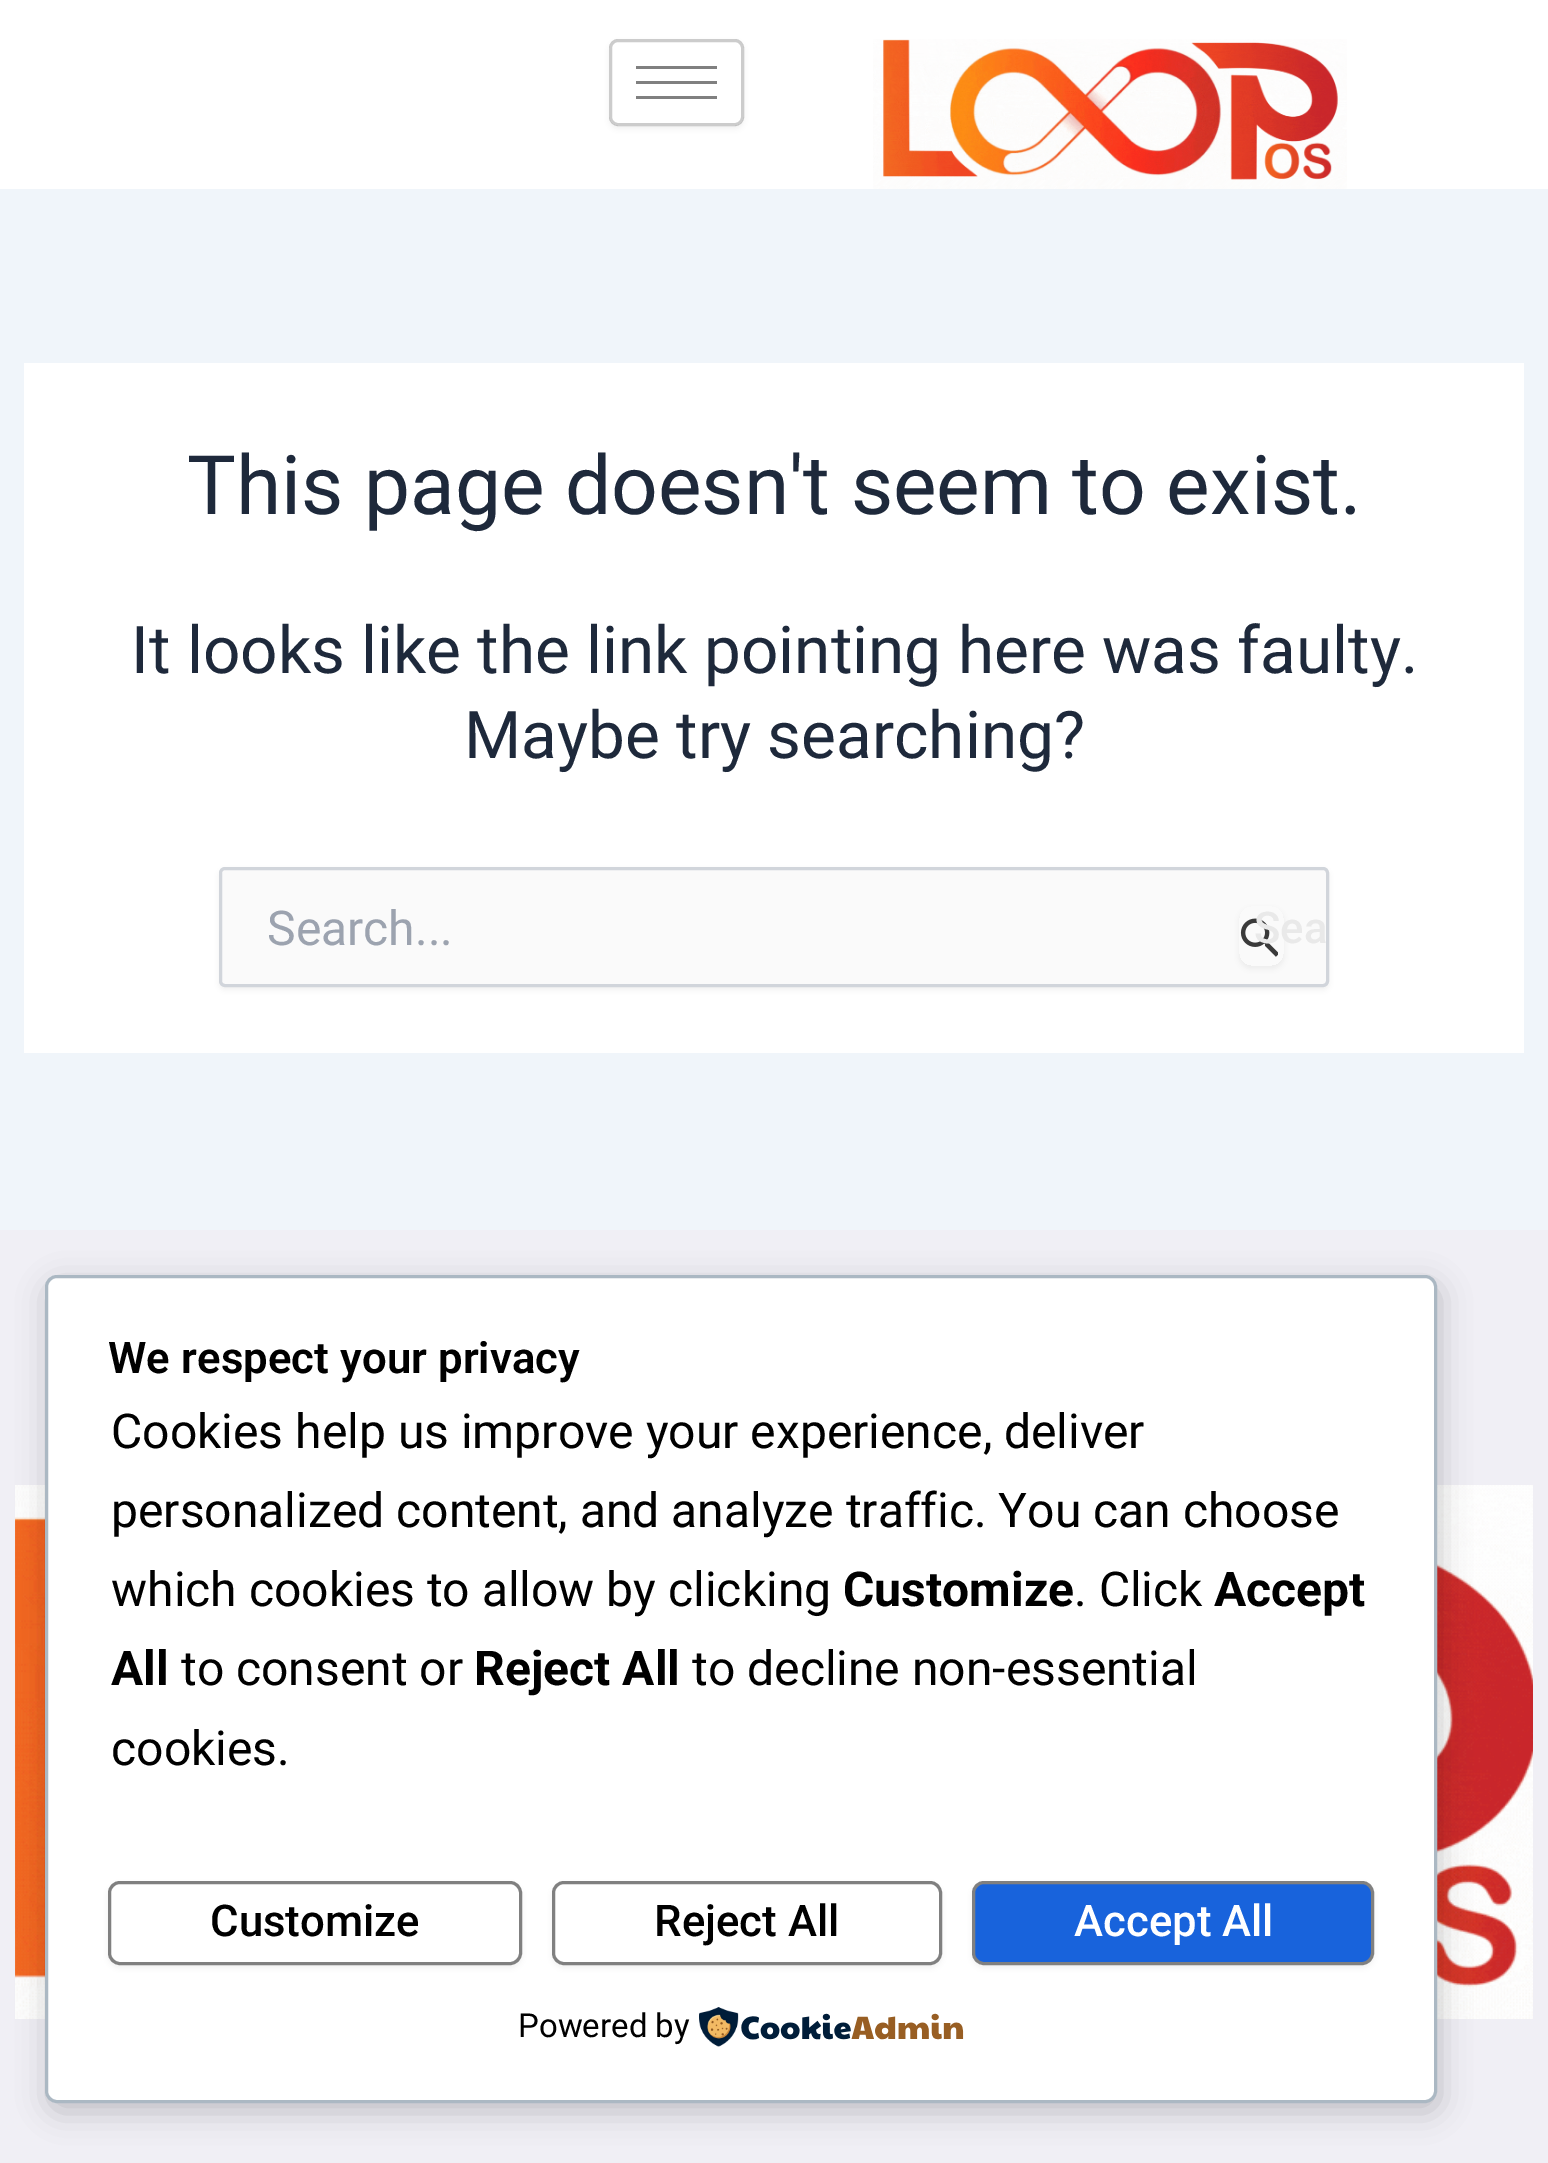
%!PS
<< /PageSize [1548 2163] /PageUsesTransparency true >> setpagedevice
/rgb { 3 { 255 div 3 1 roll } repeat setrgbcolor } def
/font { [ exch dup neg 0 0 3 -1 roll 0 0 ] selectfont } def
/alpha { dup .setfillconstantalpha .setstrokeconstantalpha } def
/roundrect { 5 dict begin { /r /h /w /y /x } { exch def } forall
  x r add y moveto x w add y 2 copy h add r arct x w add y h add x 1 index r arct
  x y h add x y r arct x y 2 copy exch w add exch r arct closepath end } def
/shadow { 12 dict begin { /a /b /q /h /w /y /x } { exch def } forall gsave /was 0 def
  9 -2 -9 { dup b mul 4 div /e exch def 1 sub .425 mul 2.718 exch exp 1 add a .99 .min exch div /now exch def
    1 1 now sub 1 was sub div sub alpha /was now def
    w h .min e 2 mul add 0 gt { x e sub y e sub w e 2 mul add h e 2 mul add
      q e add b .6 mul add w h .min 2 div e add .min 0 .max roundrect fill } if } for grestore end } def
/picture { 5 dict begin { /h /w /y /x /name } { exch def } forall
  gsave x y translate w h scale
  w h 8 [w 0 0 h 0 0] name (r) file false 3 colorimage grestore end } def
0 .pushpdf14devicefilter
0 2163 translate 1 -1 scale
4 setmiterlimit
240 245 250 rgb
0 0 1548 2163 rectfill
255 255 255 rgb
0 0 1548 189 rectfill
gsave
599 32 moveto 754 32 lineto 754 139 lineto 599 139 lineto closepath 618 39 moveto 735 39 lineto 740 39 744 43 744 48 curveto 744 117 lineto 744 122 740 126 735 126 curveto 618 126 lineto 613 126 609 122 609 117 curveto 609 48 lineto 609 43 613 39 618 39 curveto closepath eoclip newpath
0 0 0 rgb
609 42 135 87 9 3 0.05 shadow
grestore
0.2 alpha
0 0 0 rgb
3 setlinewidth
610.5 40.5 132 84 7.5 roundrect stroke
1 alpha
[
  [636 66 81 3 128 128 128]
  [636 81 81 3 128 128 128]
  [636 96 81 3 128 128 128]
] { aload pop rgb rectfill } forall
(img/1.rgb) 873 39 474 150 picture
255 255 255 rgb
24 363 1500 690 rectfill
0 0 0 rgb
219 870 1110 120 6 3 0.05 shadow
250 250 250 rgb
220.5 868.5 1107 117 4.5 roundrect gsave fill grestore
209 213 219 rgb
stroke
gsave
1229 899 moveto 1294 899 lineto 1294 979 lineto 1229 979 lineto closepath 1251 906 moveto 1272 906 lineto 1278.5 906 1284 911.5 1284 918 curveto 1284 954 lineto 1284 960.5 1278.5 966 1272 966 curveto 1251 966 lineto 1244.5 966 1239 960.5 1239 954 curveto 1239 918 lineto 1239 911.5 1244.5 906 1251 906 curveto closepath eoclip newpath
0 0 0 rgb
1239 909 45 60 12 3 0.05 shadow
grestore
(img/2.rgb) 1240 918 38 39 picture
240 239 245 rgb
0 1230 1548 933 rectfill
(img/3.rgb) 15 1485 1518 534 picture
0 0 0 rgb
48 1284 1392 828 12 15 0.2 shadow
255 255 255 rgb
46.5 1276.5 1389 825 10.5 roundrect gsave fill grestore
171 184 195 rgb
stroke
0 0 0 rgb
108 1884 414 84 12 3 0.05 shadow
255 255 255 rgb
109.5 1882.5 411 81 10.5 roundrect gsave fill grestore
128 128 128 rgb
stroke
0 0 0 rgb
552 1884 390 84 12 3 0.05 shadow
255 255 255 rgb
553.5 1882.5 387 81 10.5 roundrect gsave fill grestore
128 128 128 rgb
stroke
0 0 0 rgb
972 1884 402 84 12 3 0.05 shadow
24 99 220 rgb
973.5 1882.5 399 81 10.5 roundrect gsave fill grestore
128 128 128 rgb
stroke
(img/4.rgb) 699 2007 265 40 picture
/Roboto-Regular 82.1 font
30 41 59 rgb
187 514 moveto (This page doesn't seem to exist.) show
/Roboto-Regular 65.7 font
131 673 moveto (It looks like the link pointing here was faulty.) show
464 758 moveto (Maybe try searching?) show
/Roboto-Regular 48 font
156 163 175 rgb
267 945 moveto (Search...) show
/Roboto-Medium 43.75 font
233 233 233 rgb
1254 943 moveto (Sea) show
/Roboto-SemiBold 43.75 font
0 0 0 rgb
108 1373 moveto 0.5 0 32 (We respect your privacy) widthshow
/Roboto-Regular 48 font
[
  [(Cookies help us improve your experience, deliver) 111 1448]
  [(personalized content, and analyze traffic. You can choose) 111 1527]
  [(which cookies to allow by clicking) 111 1606]
] { aload pop moveto show } forall
/Roboto-Bold 48 font
843 1606 moveto (Customize) show
/Roboto-Regular 48 font
1074 1606 moveto (. Click) show
/Roboto-Bold 48 font
1214 1606 moveto (Accept) show
111 1685 moveto (All) show
/Roboto-Regular 48 font
181 1685 moveto (to consent or) show
/Roboto-Bold 48 font
474 1685 moveto (Reject All) show
/Roboto-Regular 48 font
692 1685 moveto (to decline non-essential) show
111 1765 moveto (cookies.) show
/Roboto-Medium 43.75 font
210 1936 moveto (Customize) show
654 1936 moveto (Reject All) show
255 255 255 rgb
1074 1936 moveto (Accept All) show
/Roboto-Regular 33 font
0 0 0 rgb
518 2037 moveto (Powered by) show
.poppdf14devicefilter showpage
